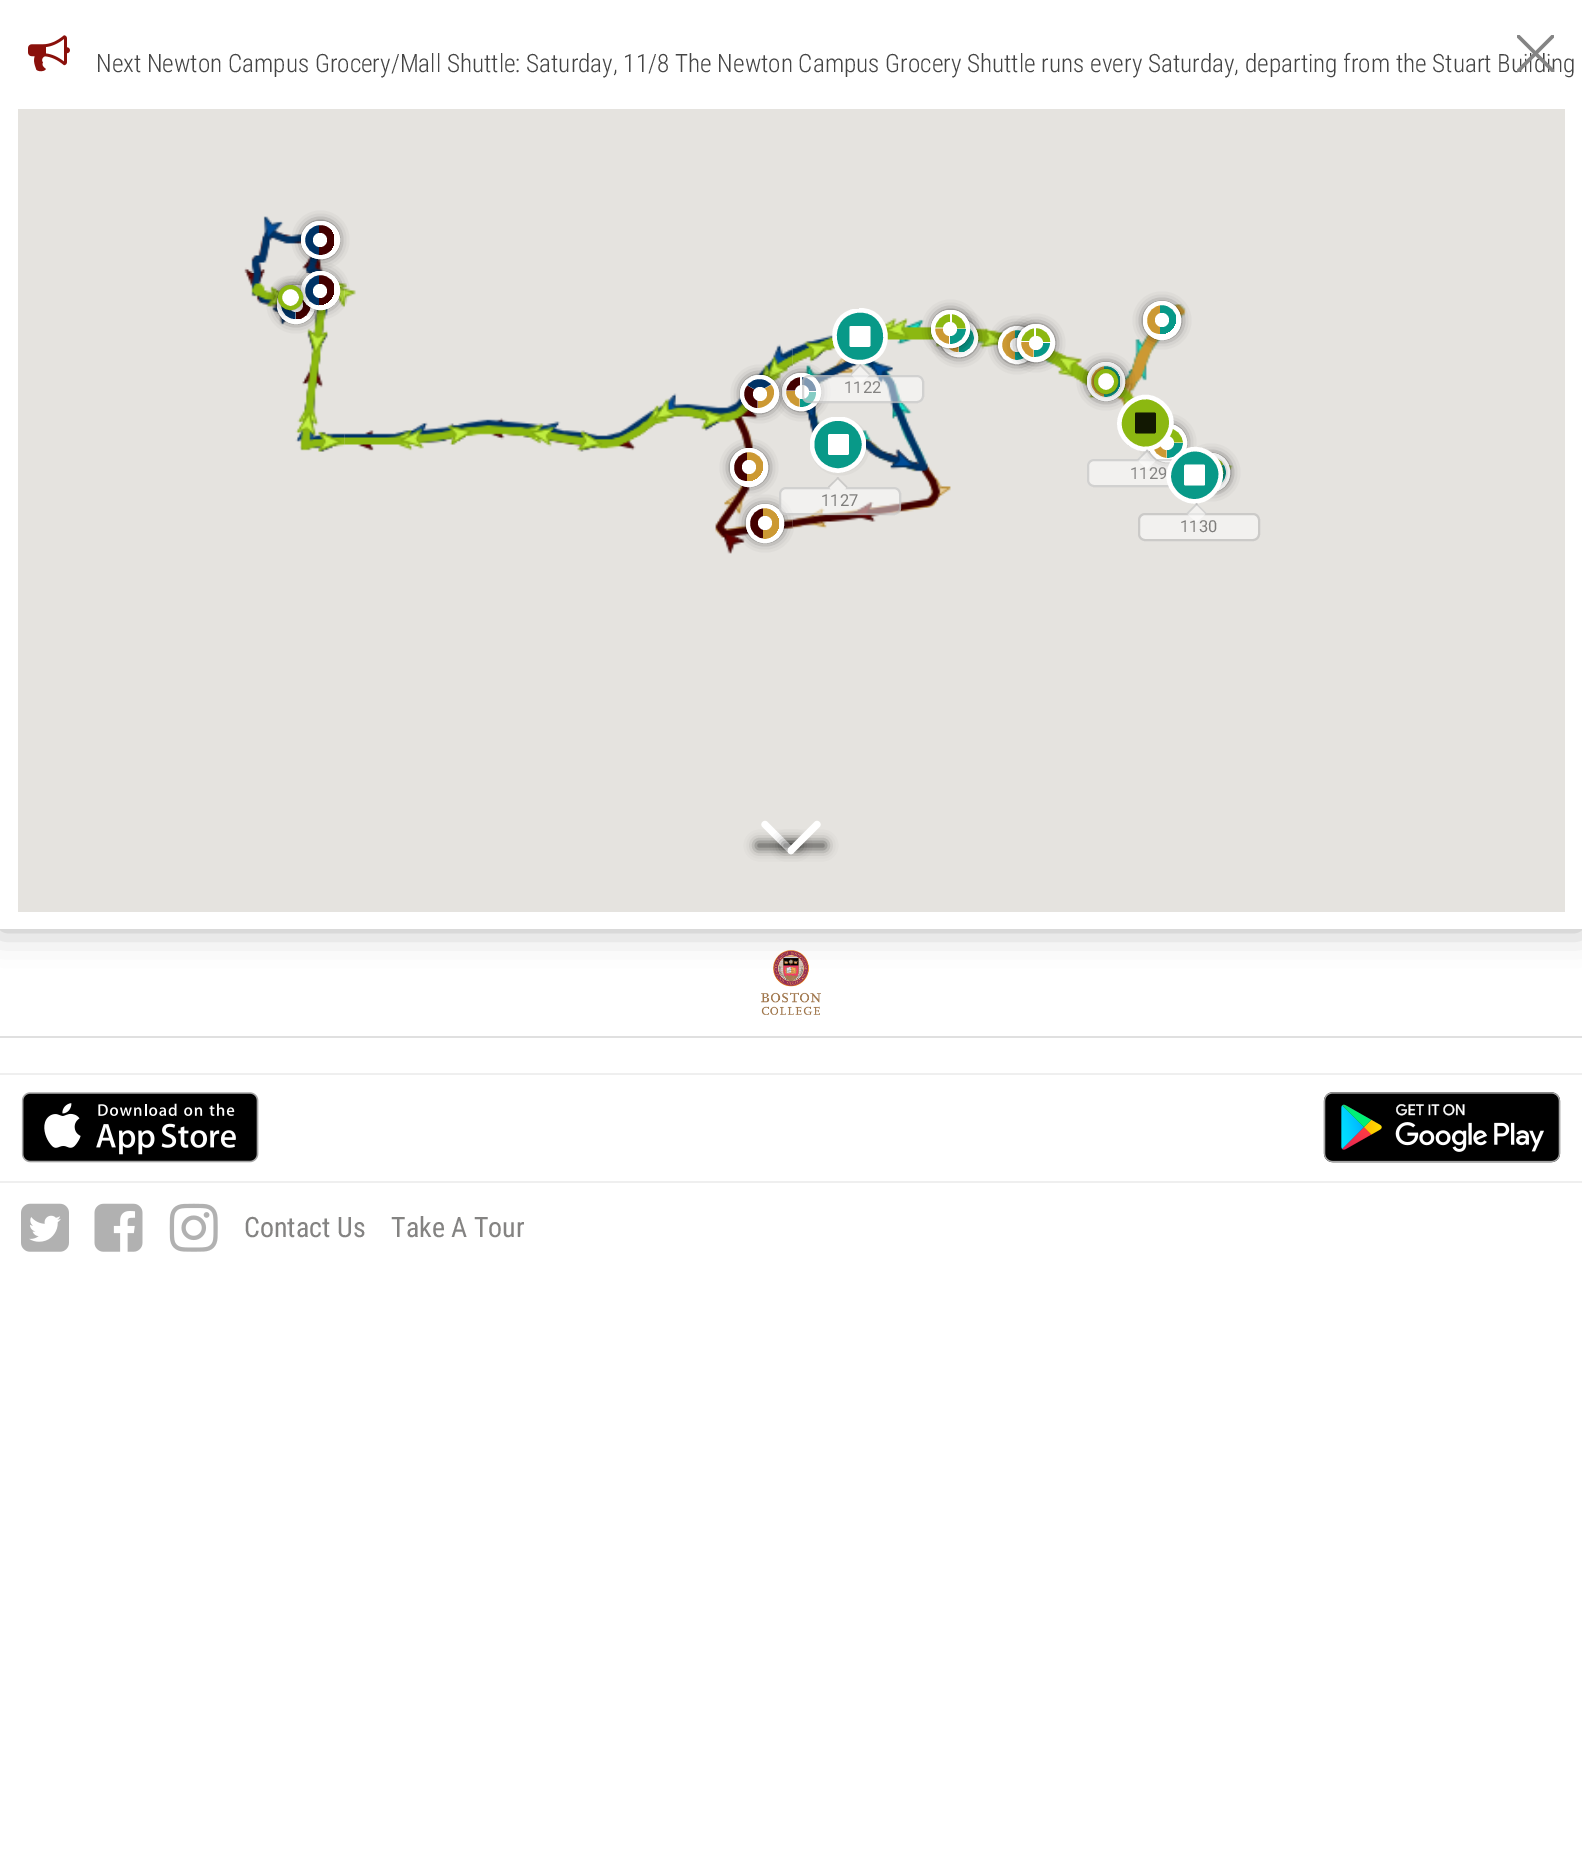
%!PS
<< /PageSize [1582 1857] /PageUsesTransparency true >> setpagedevice
/rgb { 3 { 255 div 3 1 roll } repeat setrgbcolor } def
/font { [ exch dup neg 0 0 3 -1 roll 0 0 ] selectfont } def
/alpha { dup .setfillconstantalpha .setstrokeconstantalpha } def
/circle { newpath 0 360 arc closepath } def
/roundrect { 5 dict begin { /r /h /w /y /x } { exch def } forall
  x r add y moveto x w add y 2 copy h add r arct x w add y h add x 1 index r arct
  x y h add x y r arct x y 2 copy exch w add exch r arct closepath end } def
/shadow { 12 dict begin { /a /b /q /h /w /y /x } { exch def } forall gsave /was 0 def
  9 -2 -9 { dup b mul 4 div /e exch def 1 sub .425 mul 2.718 exch exp 1 add a .99 .min exch div /now exch def
    1 1 now sub 1 was sub div sub alpha /was now def
    w h .min e 2 mul add 0 gt { x e sub y e sub w e 2 mul add h e 2 mul add
      q e add b .6 mul add w h .min 2 div e add .min 0 .max roundrect fill } if } for grestore end } def
/picture { 5 dict begin { /h /w /y /x /name } { exch def } forall
  gsave x y translate w h scale
  w h 8 [w 0 0 h 0 0] name (r) file false 3 colorimage grestore end } def
0 .pushpdf14devicefilter
0 1857 translate 1 -1 scale
4 setmiterlimit
229 227 223 rgb
0 0 1582 1857 rectfill
255 255 255 rgb
0 0 1582 109 rectfill
(img/1.rgb) 28 35 42 37 picture
(img/2.rgb) 244 216 80 57 picture
(img/5.rgb) 792 304 441 225 picture
(img/4.rgb) 344 283 449 271 picture
(img/3.rgb) 246 273 99 179 picture
0 0 0 rgb
280 289 32 31 15.5 6 1 shadow
255 255 255 rgb
277 285 38 39 19 roundrect fill
0 51 102 rgb
295.5 287 moveto 295.5 319 lineto 275 318.5 275 287.5 295.5 287 curveto closepath fill
gsave
280 287 32 32 16 roundrect clip newpath
67 0 0 rgb
296 287 moveto 296.5 287 lineto 305.5 287 313 294.5 313 303.5 curveto 313 312.5 305.5 320 296.5 320 curveto 296 320 lineto closepath fill
grestore
255 255 255 rgb
296 305 7 circle fill
4 setlinewidth
279 287 34 35 17 roundrect stroke
0 0 0 rgb
305 275 31 31 15.5 6 1 shadow
255 255 255 rgb
320.5 290.5 19.5 circle fill
0 51 102 rgb
318.5 273 moveto 319 273 lineto 319 305 lineto 303.5 305.5 297 284.5 310 275.5 curveto 312.5 274 315.5 273 318.5 273 curveto closepath fill
gsave
303 273 31 32 15.5 roundrect clip newpath
67 0 0 rgb
319 273 moveto 319.5 273 lineto 328.5 273 336 280.5 336 289.5 curveto 336 298.5 328.5 306 319.5 306 curveto 319 306 lineto closepath fill
grestore
255 255 255 rgb
320 291 7 circle fill
320.5 290.5 17.5 circle stroke
0 0 0 rgb
305 224 31 32 15.5 6 1 shadow
255 255 255 rgb
301 221 39 38 19 roundrect fill
gsave
301 224 18 32 rectclip
0 51 102 rgb
319.5 255 moveto 319.5 224 lineto 299.5 223 295.5 255 319.5 255 curveto closepath fill
grestore
gsave
303 224 31 32 15.5 roundrect clip newpath
67 0 0 rgb
319 224 moveto 319.5 224 lineto 328.5 224 336 231.5 336 240.5 curveto 336 249.5 328.5 257 319.5 257 curveto 319 257 lineto closepath fill
grestore
320 240 7 circle fill
303 223 35 34 17 roundrect stroke
0 0 0 rgb
282 289 17 17 8.5 6 1 shadow
255 255 255 rgb
290.5 297.5 10.5 circle gsave fill grestore
140 184 17 rgb
stroke
0 0 0 rgb
943 322 32 32 16 6 1 shadow
255 255 255 rgb
959 338 19 circle fill
204 153 51 rgb
958.5 320 moveto 958.5 352 lineto 938 351.5 938 320.5 958.5 320 curveto closepath fill
gsave
943 320 32 32 16 roundrect clip newpath
8 153 136 rgb
959 320 moveto 960 320 lineto 969.5 320 977 327.5 977 337 curveto 977 346.5 969.5 354 960 354 curveto 959 354 lineto closepath fill
grestore
255 255 255 rgb
959 338 17 circle stroke
0 0 0 rgb
935 313 31 32 15.5 6 1 shadow
255 255 255 rgb
931 310 39 38 19 roundrect fill
gsave
933 313 17 32 rectclip
140 184 17 rgb
950.5 313 moveto 958.5 313 965.5 319.5 966 327.5 curveto 935 327.5 lineto 935.5 319.5 942.5 313 950.5 313 curveto closepath fill
grestore
140 184 17 rgb
952 313 moveto 958.5 313.5 964 318.5 965.5 325 curveto 965.5 328.5 lineto 952 328.5 lineto closepath fill
204 153 51 rgb
949 328.5 moveto 949 345 lineto 940 344 935 337 935 328.5 curveto closepath fill
gsave
950 313 18 32 rectclip
8 153 136 rgb
966 329 moveto 966 350 935 350 935 329 curveto closepath fill
grestore
255 255 255 rgb
950 329 7 circle fill
933 312 35 34 17 roundrect stroke
0 0 0 rgb
1146 305 32 31 15.5 6 1 shadow
255 255 255 rgb
1143 301 38 39 19 roundrect fill
gsave
1143 303 17 31 rectclip
204 153 51 rgb
1160.5 303 moveto 1161 303 lineto 1161 334 lineto 1158 334 1154.5 333 1152 331.5 curveto 1139.5 323 1145.5 303 1160.5 303 curveto closepath fill
grestore
gsave
1145 303 31 31 15.5 roundrect clip newpath
8 153 136 rgb
1160 303 moveto 1161.5 303 lineto 1170.5 303 1178 310.5 1178 319.5 curveto 1178 328.5 1170.5 336 1161.5 336 curveto 1160 336 lineto closepath fill
grestore
1162 320 7 circle fill
1145 303 34 35 17 roundrect stroke
0 0 0 rgb
1001 329 32 32 16 6 1 shadow
gsave
998 329 17 32 rectclip
204 153 51 rgb
1015.5 360.5 moveto 1015.5 329 lineto 994.5 328.5 992.5 360.5 1015.5 360.5 curveto closepath fill
grestore
gsave
999 329 32 32 16 roundrect clip newpath
8 153 136 rgb
1015 329 moveto 1016.5 329 lineto 1025.5 329 1033 336.5 1033 345.5 curveto 1033 354.5 1025.5 362 1016.5 362 curveto 1015 362 lineto closepath fill
grestore
255 255 255 rgb
1017 345 7 circle fill
1017 345 17 circle stroke
0 0 0 rgb
1020 327 32 32 16 6 1 shadow
255 255 255 rgb
1036 343 19 circle fill
gsave
1017 326 17 31 rectclip
140 184 17 rgb
1034.5 326 moveto 1043 326 1049.5 332.5 1050 341 curveto 1019 341 lineto 1019.5 332.5 1026 326 1034.5 326 curveto closepath fill
grestore
140 184 17 rgb
1036 326 moveto 1044 327 1050.5 334 1050 342 curveto 1036 342 lineto closepath fill
204 153 51 rgb
1033.5 342 moveto 1033.5 357 lineto 1025.5 356.5 1019.5 350 1019 342 curveto closepath fill
gsave
1034 326 18 31 rectclip
8 153 136 rgb
1050 343 moveto 1048 361.5 1021 361.5 1019 343 curveto closepath fill
grestore
255 255 255 rgb
1036 343 7 circle fill
1036 343 17 circle stroke
0 0 0 rgb
1090 366 32 31 15.5 6 1 shadow
255 255 255 rgb
1087 362 38 39 19 roundrect fill
gsave
1087 366 17 31 rectclip
204 153 51 rgb
1104.5 366 moveto 1105 366 lineto 1105 397 lineto 1090 397.5 1083 377.5 1096 368.5 curveto 1098.5 367 1101.5 366 1104.5 366 curveto closepath fill
grestore
gsave
1089 366 31 31 15.5 roundrect clip newpath
8 153 136 rgb
1104 366 moveto 1105.5 366 lineto 1114.5 366 1122 373.5 1122 382.5 curveto 1122 391.5 1114.5 399 1105.5 399 curveto 1104 399 lineto closepath fill
grestore
1089 364 34 35 17 roundrect stroke
0 0 0 rgb
786 376 31 32 15.5 6 1 shadow
255 255 255 rgb
782 373 39 38 19 roundrect fill
gsave
782 376 18 32 rectclip
67 0 0 rgb
800 376 moveto 808.5 376 815 382.5 816 390.5 curveto 784 390.5 lineto 785 382.5 791.5 376 800 376 curveto closepath fill
grestore
0 51 102 rgb
802 376 moveto 809.5 377 815.5 383.5 816 391 curveto 802 391 lineto closepath fill
204 153 51 rgb
799.5 391 moveto 799.5 408 lineto 792.5 408 787 403.5 785 397 curveto 785 391 lineto closepath fill
gsave
800 376 17 32 rectclip
8 153 136 rgb
816 392 moveto 784 392 lineto 784 401 791 408 800 408 curveto 809 408 816 401 816 392 curveto closepath fill
grestore
255 255 255 rgb
802 392 7 circle fill
784 375 35 34 17 roundrect stroke
0 0 0 rgb
744 378 31 32 15.5 6 1 shadow
255 255 255 rgb
740 375 39 38 19 roundrect fill
67 0 0 rgb
757.5 391.5 moveto 757.5 408 lineto 749 407.5 742 400.5 742 392 curveto 742 390 742.5 388.5 743 386.5 curveto 744.5 384 lineto closepath fill
gsave
758 376 17 32 rectclip
204 153 51 rgb
772 384.5 moveto 781.5 402.5 755 417.5 744.5 400.5 curveto closepath fill
grestore
0 51 102 rgb
744.5 383.5 moveto 749.5 374 764 373.5 770.5 382 curveto 771.5 384 lineto 758.5 391.5 lineto closepath fill
255 255 255 rgb
760 394 7 circle fill
742 377 35 34 17 roundrect stroke
8 153 136 rgb
863 362 moveto 829 366 823 315 857 311 curveto 891 307 897 358 863 362 curveto closepath eofill
gsave
892 361.5 moveto 836.5 368 lineto 829.5 312.5 lineto 885 306 lineto closepath clip newpath
255 255 255 rgb
4.4 setlinewidth
863 362 moveto 829.5 366 823 315 857 310.5 curveto 890.5 306.5 897 358 863 362 curveto closepath stroke
grestore
255 255 255 rgb
849.5 345 moveto 849.5 327.5 lineto 849.5 326.5 850.5 326 851 326 curveto 868.5 326 lineto 869.5 326 870.5 326.5 870.5 327.5 curveto 870.5 345 lineto 870.5 346 869.5 347 868.5 347 curveto 851 347 lineto 850.5 347 849.5 346 849.5 345 curveto closepath eofill
0.5 alpha
802 375 122 28 7 roundrect fill
177 177 177 rgb
2 setlinewidth
803 376 120 26 6 roundrect stroke
1 alpha
0 0 0 rgb
1097 373 18 17 8.5 6 1 shadow
255 255 255 rgb
1096 371 20 21 10 roundrect gsave fill grestore
140 184 17 rgb
4 setlinewidth
stroke
0 0 0 rgb
733 452 32 31 15.5 6 1 shadow
255 255 255 rgb
730 448 38 39 19 roundrect fill
gsave
730 450 17 31 rectclip
67 0 0 rgb
747.5 450 moveto 739 450 732 457 732 465.5 curveto 732 474 739 481 747.5 481 curveto closepath fill
grestore
gsave
732 450 31 31 15.5 roundrect clip newpath
204 153 51 rgb
747 450 moveto 748.5 450 lineto 757.5 450 765 457.5 765 466.5 curveto 765 475.5 757.5 483 748.5 483 curveto 747 483 lineto closepath fill
grestore
749 467 7 circle fill
732 450 34 35 17 roundrect stroke
0 0 0 rgb
824 431 32 31 15.5 6 1 shadow
1195 457 32 31 15.5 6 1 shadow
255 255 255 rgb
1192 453 38 39 19 roundrect fill
8 153 136 rgb
1225 464 moveto 1234.5 481 1209 497 1197.5 480 curveto closepath fill
140 184 17 rgb
1211 455 moveto 1215.5 455 1219 456.5 1222 459.5 curveto 1224.5 463.5 lineto 1211.5 471 lineto 1197.5 462.5 lineto 1200 458 1205 455 1211 455 curveto closepath fill
255 255 255 rgb
1194 455 34 35 17 roundrect stroke
0 0 0 rgb
1152 427 31 32 15.5 6 1 shadow
255 255 255 rgb
1148 424 39 38 19 roundrect fill
140 184 17 rgb
1169 427 moveto 1176.5 428 1183 434.5 1183 442.5 curveto 1169 442.5 lineto closepath fill
204 153 51 rgb
1166.5 442.5 moveto 1166.5 459 lineto 1157.5 458.5 1152 451 1152 442.5 curveto closepath fill
gsave
1167 427 18 32 rectclip
8 153 136 rgb
1183 443 moveto 1183 464 1152 464 1152 443 curveto closepath fill
grestore
255 255 255 rgb
1167 443 7 circle fill
1150 426 35 34 17 roundrect stroke
140 184 17 rgb
1128 442 moveto 1103 419 1137 381 1163 404 curveto 1188 427 1153 465 1128 442 curveto closepath eofill
gsave
1147.5 461.5 moveto 1105.5 424 lineto 1143 382.5 lineto 1185 420 lineto closepath clip newpath
255 255 255 rgb
4.4 setlinewidth
1128 442 moveto 1103 419.5 1137.5 381 1162.5 404 curveto 1188 426.5 1153.5 465 1128 442 curveto closepath stroke
grestore
18 24 2 rgb
1135 431.5 moveto 1135 414 lineto 1135 413.5 1135.5 412.5 1136.5 412.5 curveto 1154 412.5 lineto 1155 412.5 1156 413.5 1156 414 curveto 1156 431.5 lineto 1156 432.5 1155 433.5 1154 433.5 curveto 1136.5 433.5 lineto 1135.5 433.5 1135 432.5 1135 431.5 curveto closepath eofill
0 0 0 rgb
1202 464 18 17 8.5 6 1 shadow
140 184 17 rgb
1201 462 20 21 10 roundrect stroke
0.5 alpha
255 255 255 rgb
1087 459 122 28 7 roundrect fill
177 177 177 rgb
2 setlinewidth
1088 460 120 26 6 roundrect stroke
1 alpha
0 0 0 rgb
749 508 32 31 15.5 6 1 shadow
255 255 255 rgb
746 504 38 39 19 roundrect fill
gsave
746 508 17 31 rectclip
67 0 0 rgb
763.5 538.5 moveto 763.5 508 lineto 742 508 741 538.5 763.5 538.5 curveto closepath fill
grestore
gsave
747 508 32 31 15.5 roundrect clip newpath
204 153 51 rgb
763 508 moveto 764.5 508 lineto 773.5 508 781 515.5 781 524.5 curveto 781 533.5 773.5 541 764.5 541 curveto 763 541 lineto closepath fill
grestore
765 523 7 circle fill
4 setlinewidth
748 506 34 35 17 roundrect stroke
8 153 136 rgb
838 444.5 26 circle fill
gsave
810 417 56 56 rectclip
255 255 255 rgb
4.4 setlinewidth
838 444.5 26 circle stroke
grestore
255 255 255 rgb
828 434 21 21 2 roundrect fill
0.5 alpha
779 487 122 28 7 roundrect fill
177 177 177 rgb
2 setlinewidth
780 488 120 26 6 roundrect stroke
1 alpha
8 153 136 rgb
1178 495 moveto 1152 474 1184 434 1211 455 curveto 1237 477 1205 517 1178 495 curveto closepath eofill
242 241 239 rgb
1139 514 120 26 6 roundrect gsave fill grestore
203 202 200 rgb
stroke
255 255 255 rgb
0 109 18 803 rectfill
0 0 0 rgb
756 842 44 7 3.5 5.5 0.6 shadow
255 255 255 rgb
767.5 822 moveto 793.5 848 lineto 794.5 849.5 794.5 851.5 793.5 853 curveto 792 854.5 790 854.5 788.5 853 curveto 762.5 827 lineto 761 825.5 761 823.5 762.5 822 curveto 764 820.5 766 820.5 767.5 822 curveto closepath fill
0 0 0 rgb
782 842 44 7 3.5 5.5 0.6 shadow
255 255 255 rgb
788.5 848 moveto 814.5 822 lineto 816 820.5 818 820.5 819.5 822 curveto 821 823.5 821 825.5 819.5 827 curveto 793.5 853 lineto 792 854.5 790 854.5 788.5 853 curveto 787.5 851.5 787.5 849.5 788.5 848 curveto closepath fill
1565 109 17 803 rectfill
0 912 1582 945 rectfill
(img/6.rgb) 761 950 60 65 picture
gsave
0 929 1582 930 rectclip
0 0 0 rgb
0 912 1582 17 0 17.5 0.3 shadow
grestore
[
  [0 1036 1582 2 224 224 224]
  [0 1073 1582 2 239 239 239]
  [0 1181 1582 2 239 239 239]
] { aload pop rgb rectfill } forall
(img/7.rgb) 21 1092 238 71 picture
(img/8.rgb) 1323 1092 238 71 picture
(img/9.rgb) 21 1203 48 49 picture
(img/10.rgb) 94 1203 49 49 picture
(img/11.rgb) 169 1203 49 49 picture
/RobotoCondensed-Light 25.2 font
68 68 68 rgb
96 72 moveto (Next Newton Campus Grocery/Mall Shuttle: Saturday, 11/8) show
675 72 moveto (The Newton Campus Grocery Shuttle runs every Saturday, departing from the Stuart Building) show
gsave
1517 35 37 37 rectclip
132 132 132 rgb
1518.5 34 moveto 1555 70.5 lineto 1552.5 73 lineto 1516 36.5 lineto closepath fill
1516 70.5 moveto 1552.5 34 lineto 1555 36.5 lineto 1518.5 73 lineto closepath fill
grestore
/Roboto-Regular 16.5 font
132 131 130 rgb
844 393 moveto (1122) show
0.5 alpha
255 255 255 rgb
860.5 364 moveto 870.5 374 lineto 860.5 383.5 lineto 850.5 374 lineto closepath fill
177 177 177 rgb
860.5 364 moveto 870.5 374 lineto 869 375 lineto 859 365 lineto closepath fill
860.5 364 moveto 861.5 365 lineto 851.5 375 lineto 850.5 374 lineto closepath fill
1 alpha
132 131 130 rgb
1130 479 moveto (1129) show
0.5 alpha
255 255 255 rgb
1147 449.5 moveto 1157 459.5 lineto 1147 469 lineto 1137 459.5 lineto closepath fill
177 177 177 rgb
1147 449.5 moveto 1157 459.5 lineto 1155.5 460.5 lineto 1146 450.5 lineto closepath fill
1147 449.5 moveto 1148.5 450.5 lineto 1138.5 460.5 lineto 1137 459.5 lineto closepath fill
1 alpha
126 125 123 rgb
821 506 moveto (1127) show
242 241 239 rgb
838 477 moveto 847.5 486.5 lineto 838 496.5 lineto 828 486.5 lineto closepath fill
203 202 200 rgb
838 477 moveto 847.5 486.5 lineto 846.5 488 lineto 836.5 478 lineto closepath fill
838 477 moveto 839 478 lineto 829 488 lineto 828 486.5 lineto closepath fill
gsave
1199 515 moveto 1155.5 479.5 lineto 1191 436 lineto 1234.5 471.5 lineto closepath clip newpath
255 255 255 rgb
4.4 setlinewidth
1178.5 495.5 moveto 1152 474 1184.5 434 1211 455 curveto 1237.5 476.5 1205 516.5 1178.5 495.5 curveto closepath stroke
grestore
255 255 255 rgb
1184 484 moveto 1184 466.5 lineto 1184 465.5 1185 464.5 1186 464.5 curveto 1203.5 464.5 lineto 1204.5 464.5 1205 465.5 1205 466.5 curveto 1205 484 lineto 1205 485 1204.5 485.5 1203.5 485.5 curveto 1186 485.5 lineto 1185 485.5 1184 485 1184 484 curveto closepath eofill
126 125 123 rgb
1180 532 moveto (1130) show
0.5 alpha
255 255 255 rgb
1196.5 503 moveto 1206.5 513 lineto 1196.5 522.5 lineto 1186.5 513 lineto closepath fill
177 177 177 rgb
1196.5 503 moveto 1206.5 513 lineto 1205.5 514 lineto 1195.5 504 lineto closepath fill
1196.5 503 moveto 1198 504 lineto 1188 514 lineto 1186.5 513 lineto closepath fill
/RobotoCondensed-Regular 28 font
1 alpha
132 131 130 rgb
244 1237 moveto (Contact Us) show
391 1237 moveto (Take A Tour) show
.poppdf14devicefilter showpage
